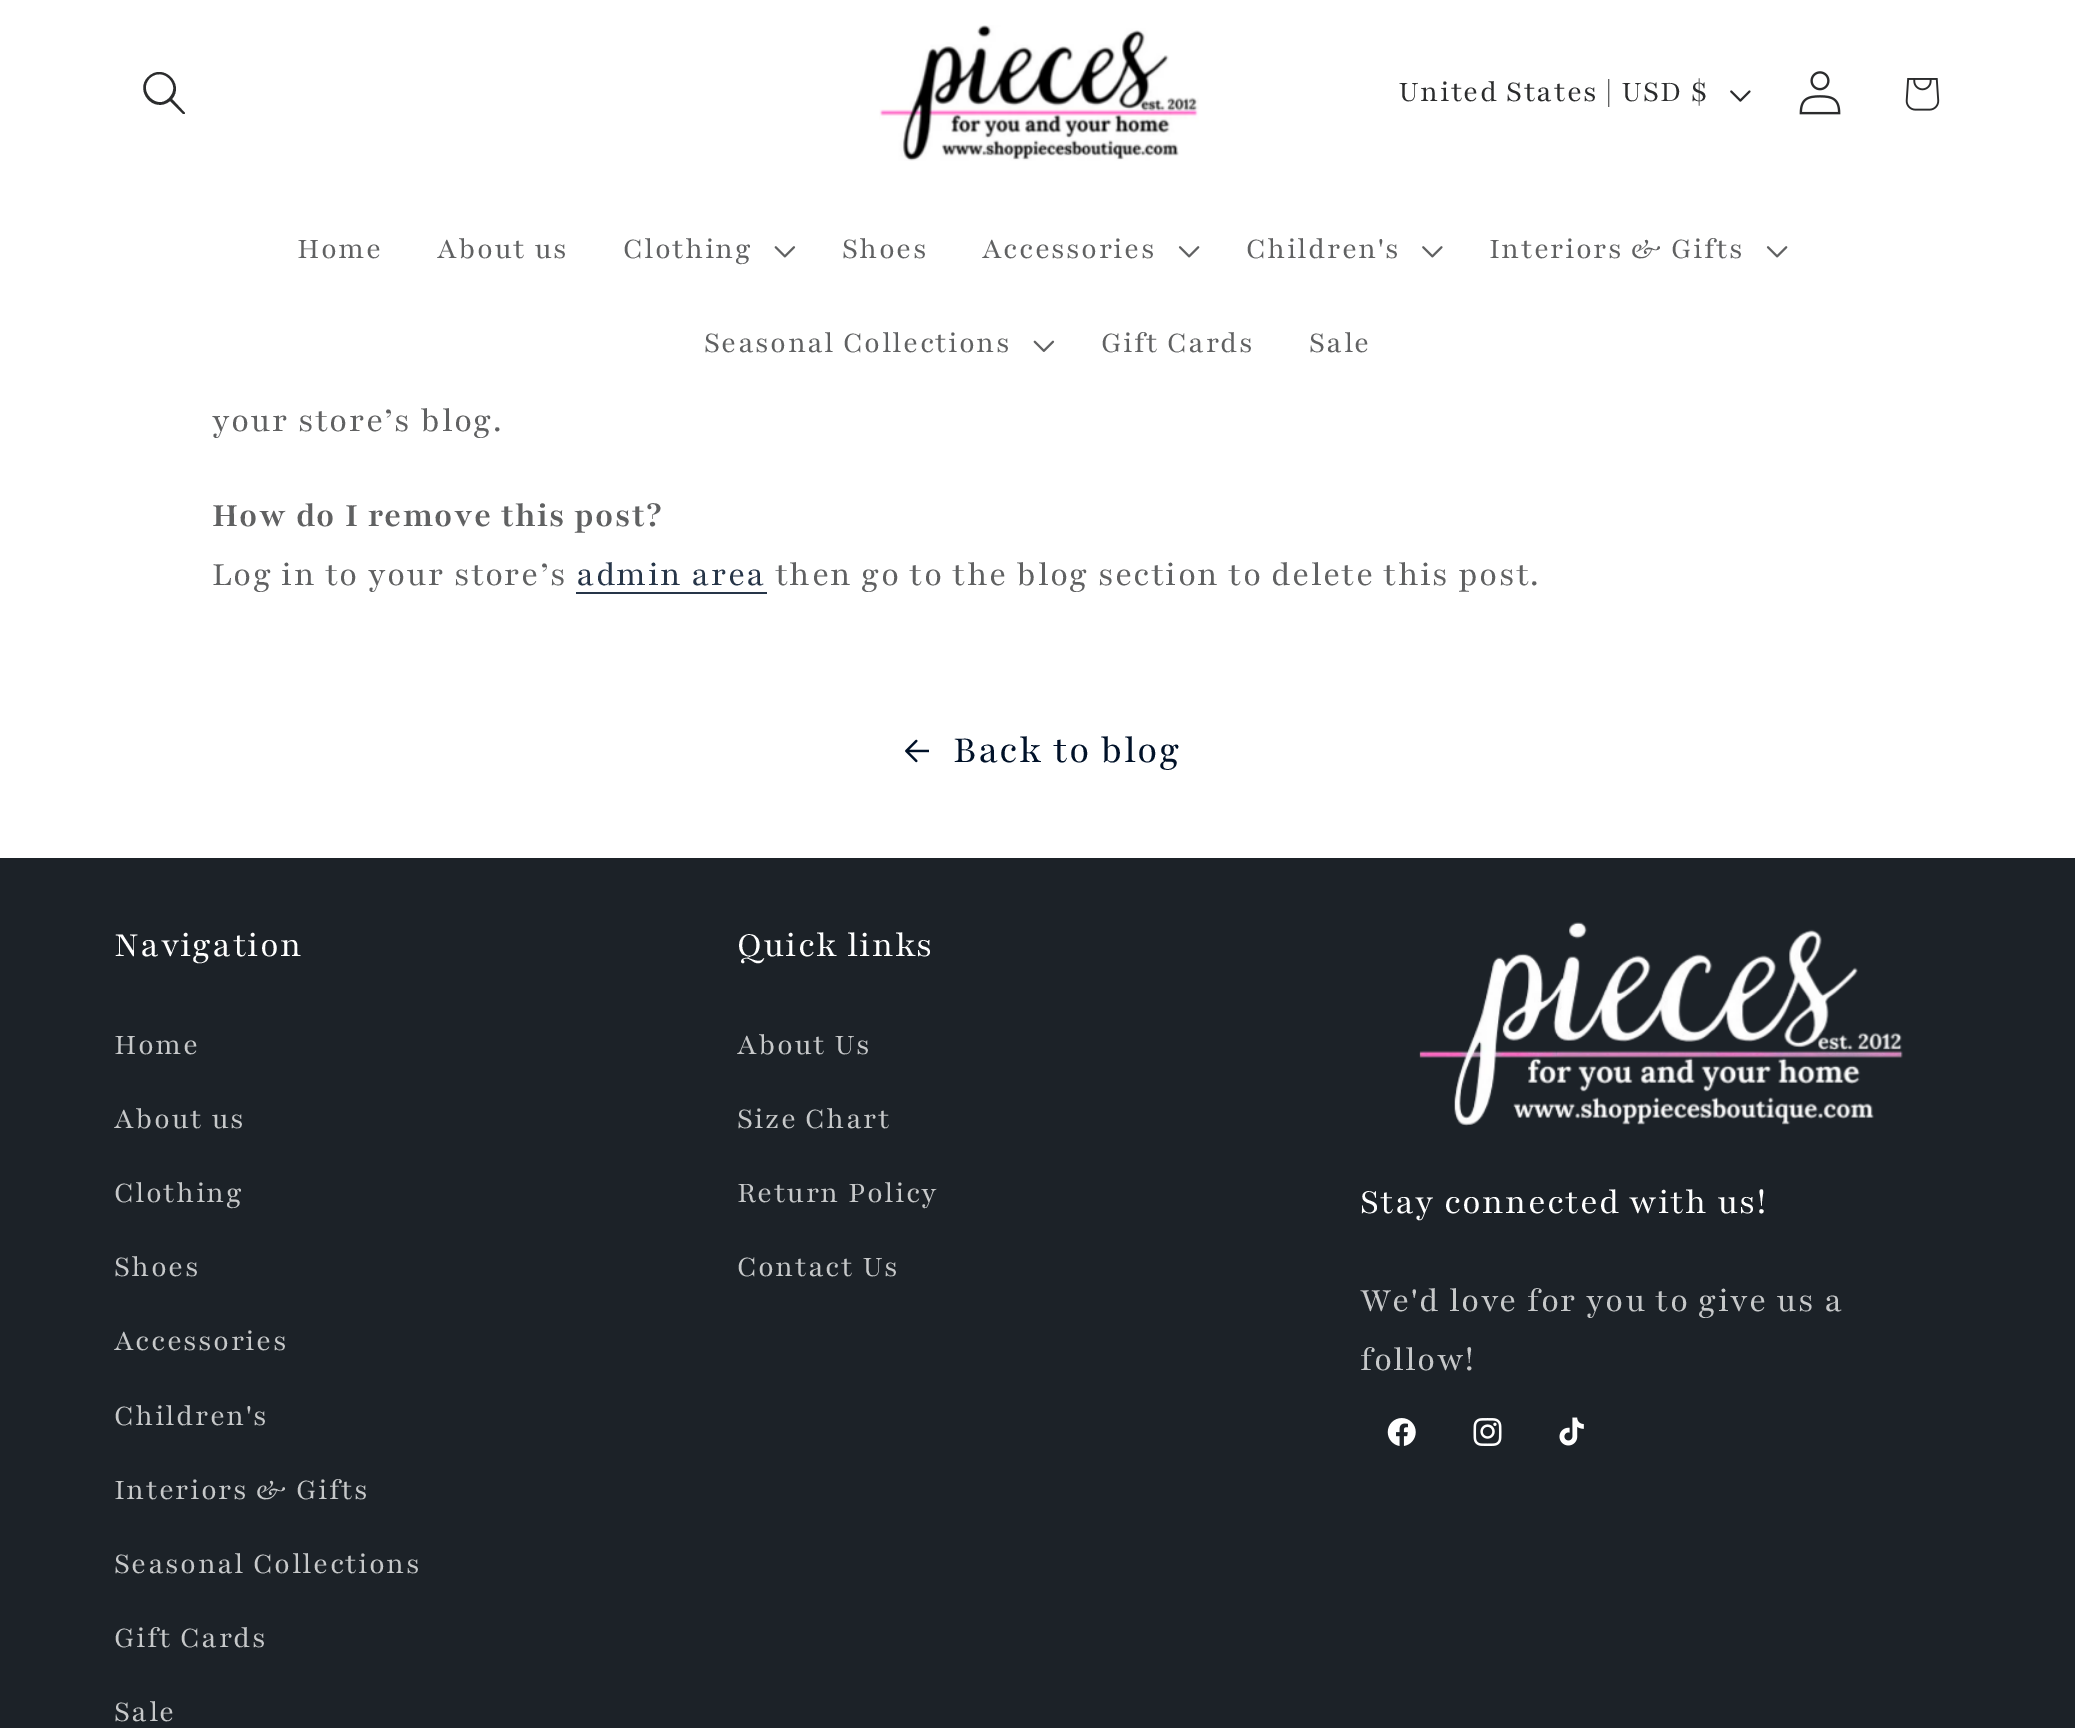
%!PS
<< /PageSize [2075 1728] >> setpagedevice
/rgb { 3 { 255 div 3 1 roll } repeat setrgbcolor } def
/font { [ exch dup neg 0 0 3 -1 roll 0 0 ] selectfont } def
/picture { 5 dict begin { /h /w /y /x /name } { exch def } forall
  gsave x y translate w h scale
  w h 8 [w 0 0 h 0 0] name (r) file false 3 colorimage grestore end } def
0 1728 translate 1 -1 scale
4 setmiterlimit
255 255 255 rgb
0 0 2075 1728 rectfill
43 44 45 rgb
169 98 moveto 157 111 137 91 150 78 curveto 163 66 182 85 169 98 curveto 170 101 moveto 154 114 134 91 148 77 curveto 163 62 185 84 172 99 curveto 185 113 lineto 185 114 184 114 183 114 curveto closepath eofill
(img/1.rgb) 879 25 320 136 picture
(img/2.rgb) 1730 90 21 12 picture
(img/3.rgb) 1799 71 42 44 picture
(img/4.rgb) 1905 78 35 33 picture
(img/5.rgb) 774 246 22 12 picture
(img/6.rgb) 1178 246 22 12 picture
(img/7.rgb) 1422 246 21 12 picture
(img/6.rgb) 1766 246 22 12 picture
(img/8.rgb) 1033 340 22 12 picture
38 53 72 rgb
576 592 191 2 rectfill
(img/9.rgb) 905 739 24 24 picture
28 34 40 rgb
0 858 2075 870 rectfill
(img/10.rgb) 1419 922 484 204 picture
(img/11.rgb) 1387 1418 29 28 picture
(img/12.rgb) 1473 1418 29 28 picture
(img/13.rgb) 1559 1417 25 29 picture
/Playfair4-Regular 31.75 font
43 44 45 rgb
1398 101 moveto 1.35 0 (United States | USD $) ashow
96 97 98 rgb
297 258 moveto 1.35 0 (Home) ashow
437 258 moveto 1.35 0 (About us) ashow
623 258 moveto 1.35 0 (Clothing) ashow
842 258 moveto 1.35 0 (Shoes) ashow
982 258 moveto 1.35 0 (Accessories) ashow
1246 258 moveto 1.35 0 (Children's) ashow
1489 258 moveto 1.35 0 (Interiors & Gifts) ashow
704 352 moveto 1.35 0 (Seasonal Collections) ashow
1101 352 moveto 1.35 0 (Gift Cards) ashow
1309 352 moveto 1.35 0 (Sale) ashow
/Playfair-Regular 36.4 font
212 431 moveto 1.35 0 (your store’s blog.) ashow
/Playfair-Bold 36.4 font
212 526 moveto 1.35 0 (How do I remove this post?) ashow
/Playfair-Regular 36.4 font
212 585 moveto 1.35 0 (Log in to your store’s) ashow
38 53 72 rgb
576 585 moveto 1.35 0 (admin area) ashow
96 97 98 rgb
775 585 moveto 1.35 0 (then go to the blog section to delete this post.) ashow
/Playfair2-Regular 41 font
0 17 40 rgb
953 762 moveto 1.35 0 (Back to blog) ashow
/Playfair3-Regular 37.75 font
255 255 255 rgb
114 956 moveto 1.25 0 (Navigation) ashow
/Playfair4-Regular 31.75 font
198 200 201 rgb
114 1054 moveto 1.35 0 (Home) ashow
114 1128 moveto 1.35 0 (About us) ashow
114 1202 moveto 1.35 0 (Clothing) ashow
114 1276 moveto 1.35 0 (Shoes) ashow
114 1350 moveto 1.35 0 (Accessories) ashow
114 1425 moveto 1.35 0 (Children's) ashow
114 1499 moveto 1.35 0 (Interiors & Gifts) ashow
114 1573 moveto 1.35 0 (Seasonal Collections) ashow
114 1647 moveto 1.35 0 (Gift Cards) ashow
114 1721 moveto 1.35 0 (Sale) ashow
/Playfair3-Regular 37.75 font
255 255 255 rgb
737 956 moveto 1.25 0 (Quick links) ashow
/Playfair4-Regular 31.75 font
198 200 201 rgb
737 1054 moveto 1.35 0 (About Us) ashow
737 1128 moveto 1.35 0 (Size Chart) ashow
737 1202 moveto 1.35 0 (Return Policy) ashow
737 1276 moveto 1.35 0 (Contact Us) ashow
/Playfair3-Regular 37.75 font
255 255 255 rgb
1360 1213 moveto 1.25 0 (Stay connected with us!) ashow
/Playfair-Regular 36.4 font
198 200 201 rgb
1360 1311 moveto 1.35 0 (We'd love for you to give us a) ashow
1360 1370 moveto 1.35 0 (follow!) ashow
showpage
